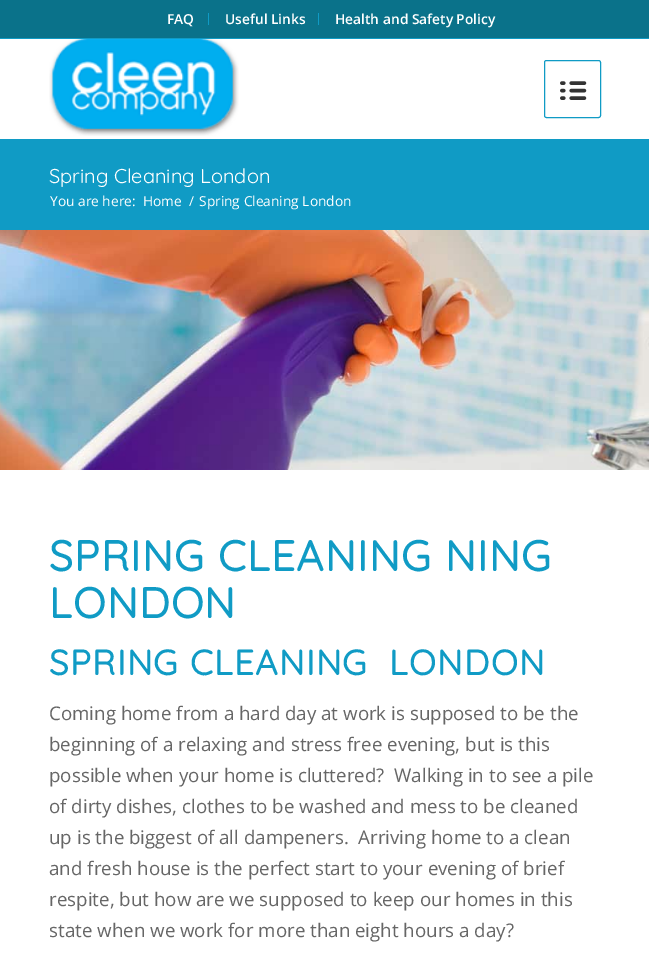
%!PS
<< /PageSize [649 961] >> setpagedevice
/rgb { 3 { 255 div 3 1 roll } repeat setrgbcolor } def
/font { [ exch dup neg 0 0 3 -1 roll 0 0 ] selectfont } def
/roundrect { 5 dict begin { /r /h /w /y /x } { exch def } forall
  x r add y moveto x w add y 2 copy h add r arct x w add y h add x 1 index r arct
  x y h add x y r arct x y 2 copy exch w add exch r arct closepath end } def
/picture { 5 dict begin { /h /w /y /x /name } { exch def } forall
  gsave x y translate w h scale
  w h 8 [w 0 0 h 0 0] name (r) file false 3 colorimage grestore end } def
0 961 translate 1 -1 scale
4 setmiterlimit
255 255 255 rgb
0 0 649 961 rectfill
[
  [0 0 649 38 10 114 138]
  [0 38 649 1 16 155 197]
  [208 13 1 12 16 155 197]
  [318 13 1 12 16 155 197]
] { aload pop rgb rectfill } forall
(img/1.rgb) 49 39 197 97 picture
544.5 60.5 56 57 2 roundrect stroke
(img/2.rgb) 560 81 27 19 picture
0 139 649 91 rectfill
(img/3.rgb) 0 230 649 240 picture
/OpenSans-SemiBold 13.75 font
255 255 255 rgb
[
  [(FAQ) 167 24]
  [(Useful Links) 225 24]
  [(Health and Safety Policy) 335 24]
] { aload pop moveto show } forall
/Quicksand-Light 20 font
49 183 moveto (Spring Cleaning London) show
/OpenSans-Regular 13.75 font
[
  [(You are here:) 50 206]
  [(Home) 143 206]
  [(/) 189 206]
  [(Spring Cleaning London) 199 206]
] { aload pop moveto show } forall
/Quicksand-Bold 42.5 font
16 155 197 rgb
49 571 moveto 1.25 0 (SPRING CLEANING NING) ashow
49 618 moveto 1.25 0 (LONDON) ashow
/Quicksand-Bold 35 font
49 675 moveto 1.25 0 (SPRING CLEANING  LONDON) ashow
/OpenSans-Regular 18.75 font
102 102 102 rgb
[
  [(Coming home from a hard day at work is supposed to be the) 49 720]
  [(beginning of a relaxing and stress free evening, but is this) 49 751]
  [(possible when your home is cluttered?  Walking in to see a pile) 49 782]
  [(of dirty dishes, clothes to be washed and mess to be cleaned) 49 813]
  [(up is the biggest of all dampeners.  Arriving home to a clean) 49 844]
  [(and fresh house is the perfect start to your evening of brief) 49 875]
  [(respite, but how are we supposed to keep our homes in this) 49 906]
  [(state when we work for more than eight hours a day?) 49 937]
] { aload pop moveto show } forall
showpage
